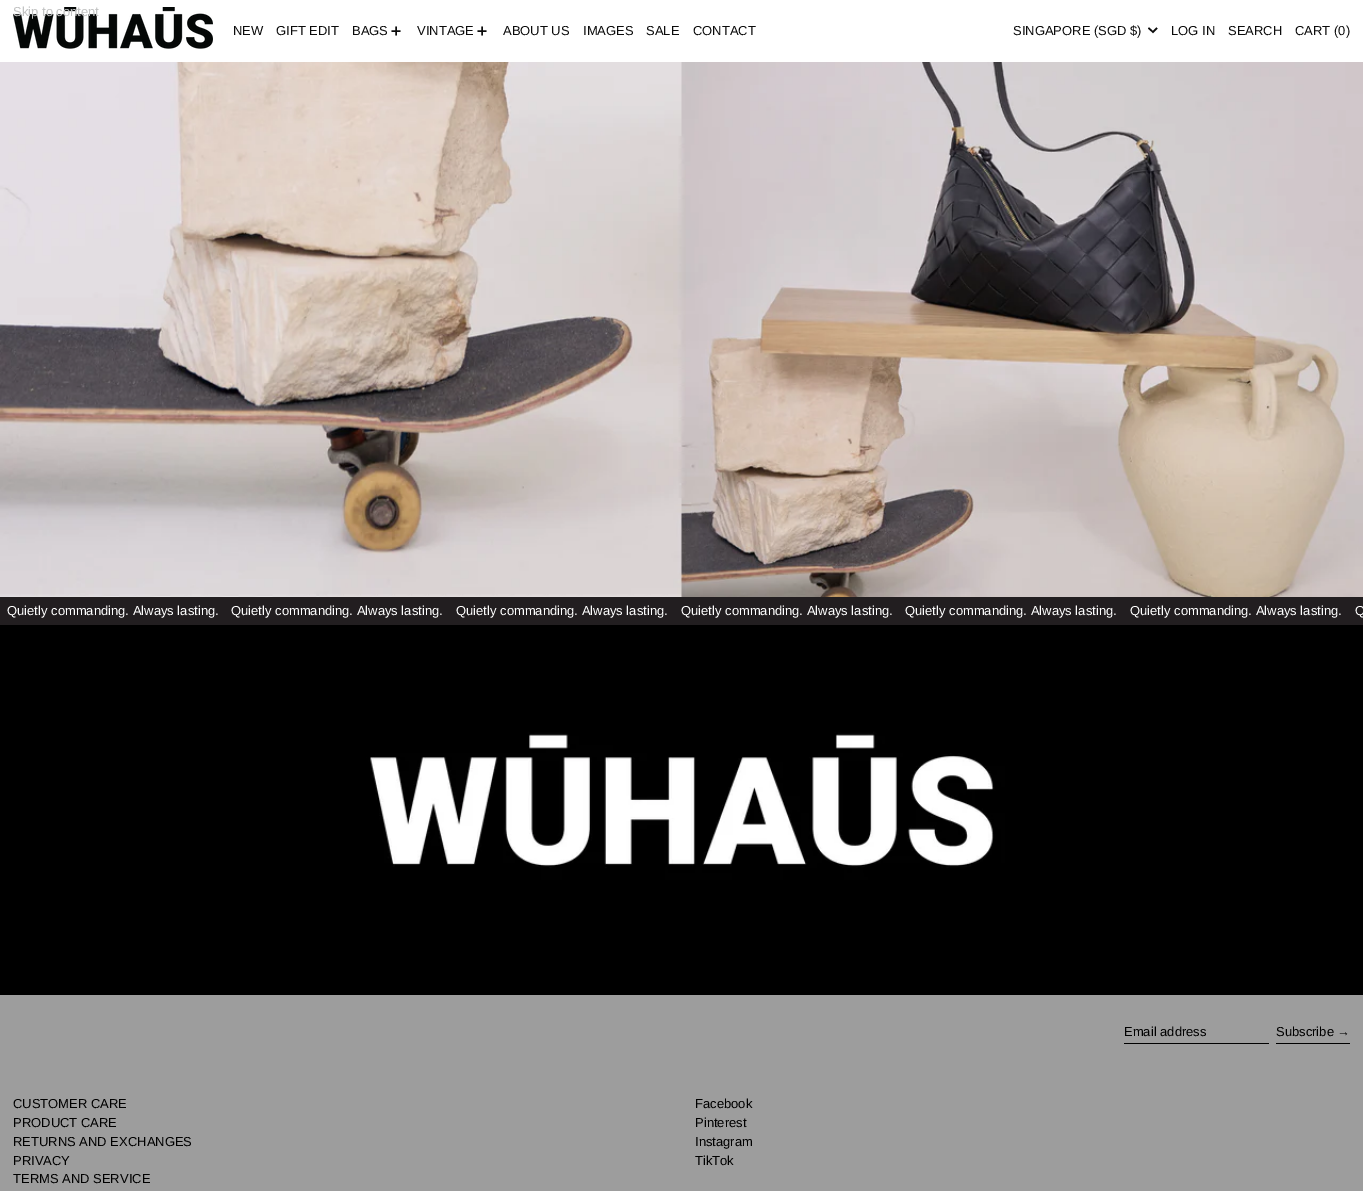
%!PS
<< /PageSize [1363 1191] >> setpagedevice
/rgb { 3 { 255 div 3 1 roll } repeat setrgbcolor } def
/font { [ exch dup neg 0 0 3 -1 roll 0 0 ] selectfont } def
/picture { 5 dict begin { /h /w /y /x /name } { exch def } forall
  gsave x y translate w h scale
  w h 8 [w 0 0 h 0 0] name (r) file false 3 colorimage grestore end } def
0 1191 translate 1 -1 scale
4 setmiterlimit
34 30 32 rgb
0 0 1363 1191 rectfill
255 255 255 rgb
0 0 1363 62 rectfill
(img/1.rgb) 13 7 200 42 picture
11 11 11 rgb
1.5 setlinewidth
396 26.5 moveto 396 35.5 lineto 391.5 31 moveto 400.5 31 lineto stroke
482 26.5 moveto 482 35.5 lineto 477.5 31 moveto 486.5 31 lineto stroke
1148.5 28 moveto 1153 32 lineto 1157 28 lineto stroke
(img/2.rgb) 0 62 1363 535 picture
(img/3.rgb) 0 625 1363 370 picture
[
  [0 995 1363 75 157 157 157]
  [1124 1043 145 1 0 0 0]
  [1276 1043 74 1 0 0 0]
  [0 1070 1363 121 157 157 157]
] { aload pop rgb rectfill } forall
/LiberationSans-Regular 13 font
194 195 195 rgb
13 16 moveto (Skip to content) show
11 11 11 rgb
[
  [(NEW) 233 35]
  [(GIFT EDIT) 276 35]
  [(BAGS) 352 35]
  [(VINTAGE) 417 35]
  [(ABOUT US) 503 35]
  [(IMAGES) 583 35]
  [(SALE) 646 35]
  [(CONTACT) 693 35]
  [(SINGAPORE \(SGD $\)) 1013 35]
  [(LOG IN) 1171 35]
  [(SEARCH) 1228 35]
  [(CART \(0\)) 1295 35]
] { aload pop moveto show } forall
255 255 255 rgb
[
  [(Quietly commanding. Always lasting.) 7 615]
  [(Quietly commanding. Always lasting.) 231 615]
  [(Quietly commanding. Always lasting.) 456 615]
  [(Quietly commanding. Always lasting.) 681 615]
  [(Quietly commanding. Always lasting.) 905 615]
  [(Quietly commanding. Always lasting.) 1130 615]
  [(Q) 1355 615]
] { aload pop moveto show } forall
0 0 0 rgb
[
  [(Email address) 1124 1036]
  [(Subscribe →) 1276 1036]
  [(CUSTOMER CARE) 13 1108]
  [(PRODUCT CARE) 13 1127]
  [(RETURNS AND EXCHANGES) 13 1146]
  [(PRIVACY) 13 1165]
  [(TERMS AND SERVICE) 13 1183]
  [(Facebook) 695 1108]
  [(Pinterest) 695 1127]
  [(Instagram) 695 1146]
  [(TikTok) 695 1165]
] { aload pop moveto show } forall
showpage
